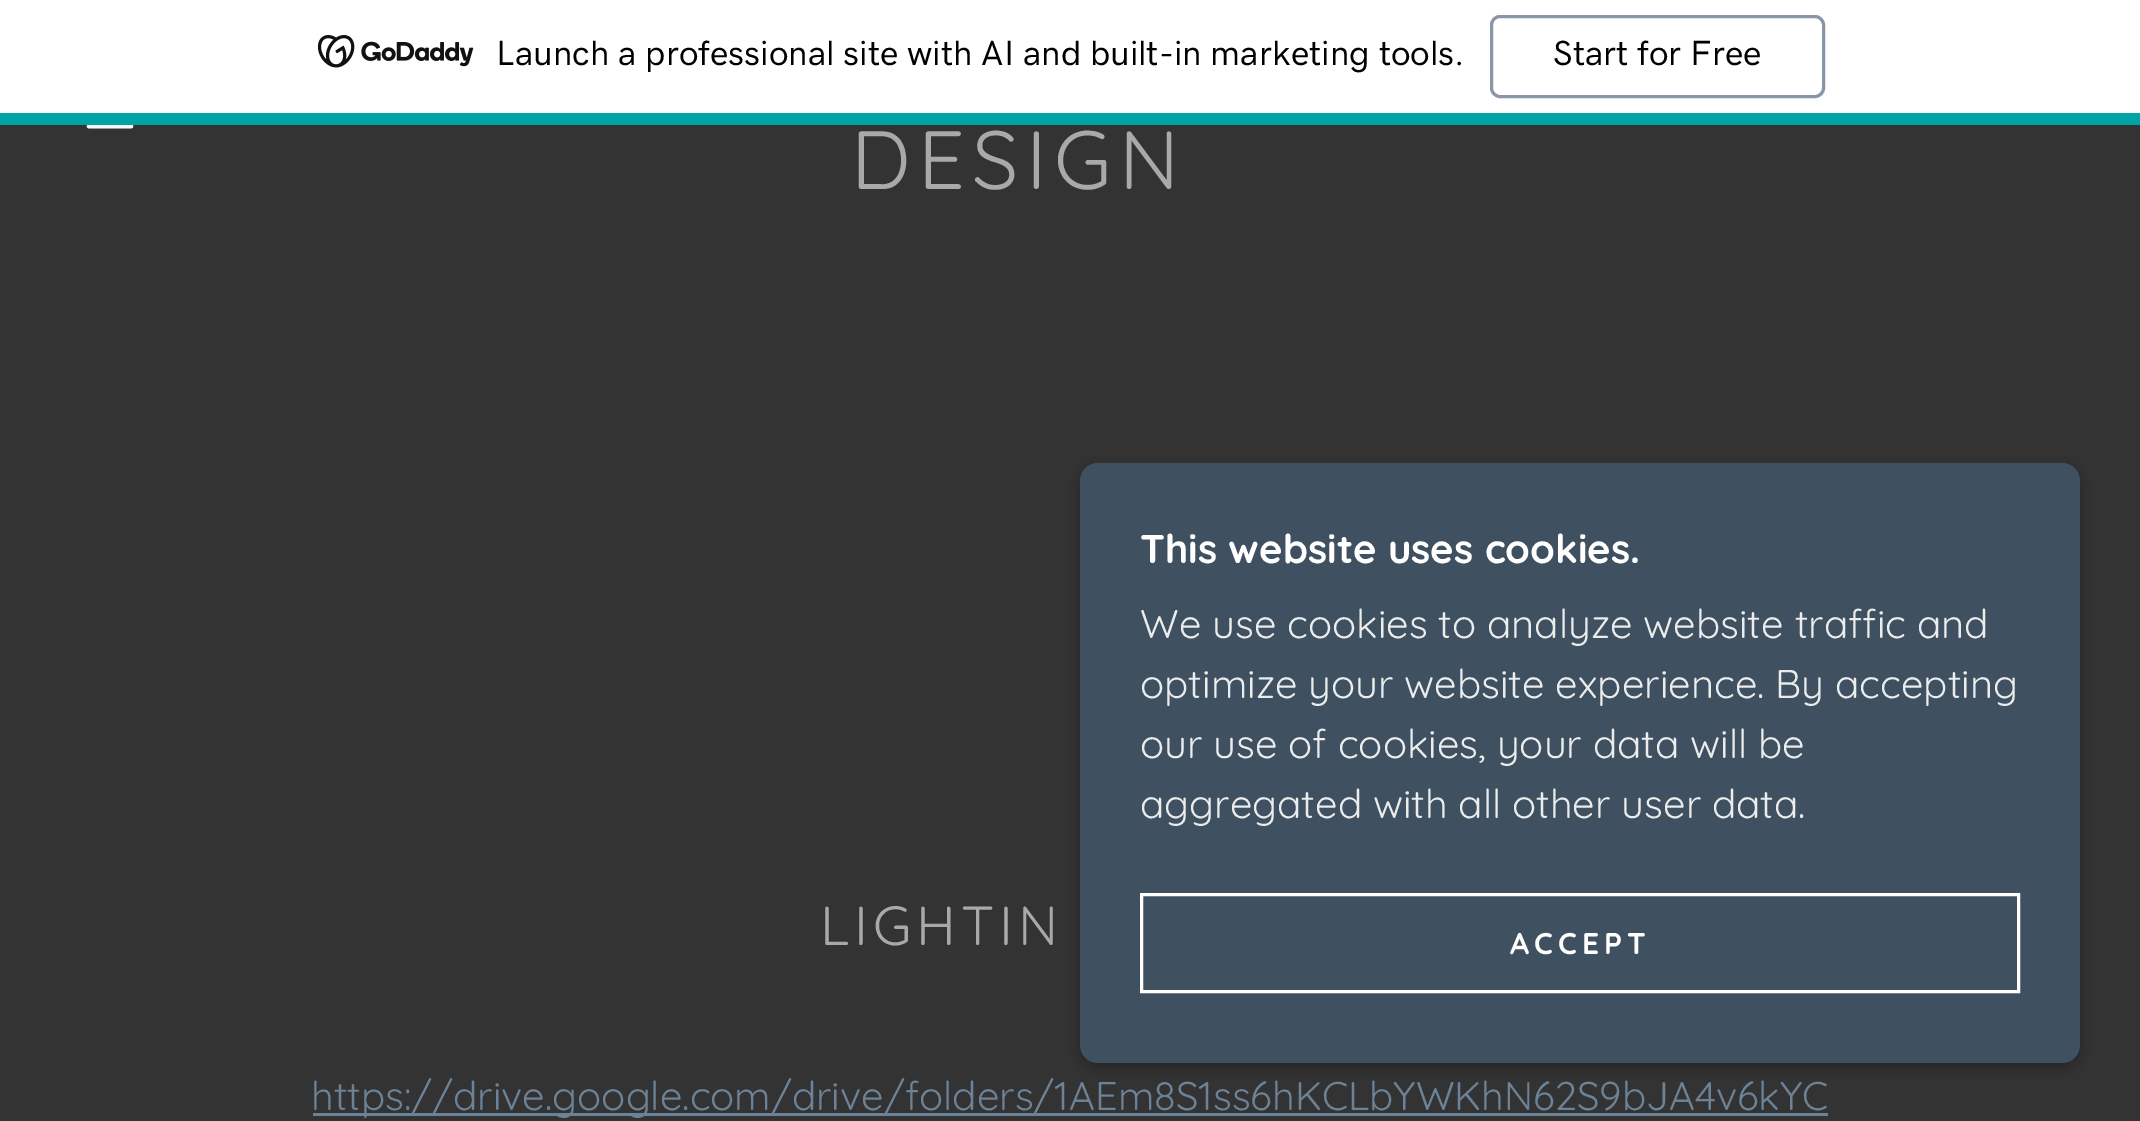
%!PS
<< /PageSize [2140 1121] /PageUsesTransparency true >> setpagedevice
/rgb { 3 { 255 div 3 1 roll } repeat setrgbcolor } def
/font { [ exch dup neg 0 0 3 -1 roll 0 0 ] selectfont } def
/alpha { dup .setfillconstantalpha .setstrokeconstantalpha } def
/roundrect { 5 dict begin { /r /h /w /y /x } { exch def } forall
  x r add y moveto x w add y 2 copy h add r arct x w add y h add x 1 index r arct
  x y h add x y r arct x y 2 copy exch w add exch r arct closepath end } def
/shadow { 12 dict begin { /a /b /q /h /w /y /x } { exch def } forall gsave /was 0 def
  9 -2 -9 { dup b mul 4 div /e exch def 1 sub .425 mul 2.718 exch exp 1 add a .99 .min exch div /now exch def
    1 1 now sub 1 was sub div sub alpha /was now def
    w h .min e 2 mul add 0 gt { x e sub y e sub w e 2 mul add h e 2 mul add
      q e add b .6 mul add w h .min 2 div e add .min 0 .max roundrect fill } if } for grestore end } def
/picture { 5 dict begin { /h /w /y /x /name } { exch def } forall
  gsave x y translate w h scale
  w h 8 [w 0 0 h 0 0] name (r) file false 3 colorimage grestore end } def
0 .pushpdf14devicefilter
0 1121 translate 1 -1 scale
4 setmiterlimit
51 51 51 rgb
0 0 2140 1121 rectfill
255 255 255 rgb
0 0 2140 113 rectfill
0 164 166 rgb
0 113 2140 12 rectfill
(img/1.rgb) 318 35 156 33 picture
137 149 169 rgb
3 setlinewidth
1491.5 16.5 332 80 8.5 roundrect stroke
(img/2.rgb) 86 125 48 4 picture
0 0 0 rgb
1080 468 1000 600 18 7.5 0.3 shadow
63 80 96 rgb
1080 463 1000 600 18 roundrect fill
255 255 255 rgb
1141.5 894.5 877 97 rectstroke
108 130 150 rgb
313 1113 1515 3 rectfill
/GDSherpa-Medium 35 font
0 0 0 rgb
496 65 moveto (Launch a professional site with AI and built-in marketing tools.) show
1553 65 moveto (Start for Free) show
/Quicksand-Regular 82.5 font
169 169 169 rgb
851 189 moveto 7.5 0 (DESIGN) ashow
/Quicksand-Bold 40 font
255 255 255 rgb
1140 563 moveto (This website uses cookies.) show
/Quicksand-Regular 40 font
235 236 236 rgb
[
  [(We use cookies to analyze website traffic and) 1140 638]
  [(optimize your website experience. By accepting) 1140 698]
  [(our use of cookies, your data will be) 1140 758]
  [(aggregated with all other user data.) 1140 818]
] { aload pop moveto show } forall
/Quicksand-Bold 30 font
255 255 255 rgb
1510 954 moveto 5 0 (ACCEPT) ashow
/Quicksand-Regular 55 font
169 169 169 rgb
820 945 moveto 5 0 (LIGHTIN) ashow
/Quicksand-Regular 40 font
108 130 150 rgb
311 1110 moveto (https://drive.google.com/drive/folders/1AEm8S1ss6hKCLbYWKhN62S9bJA4v6kYC) show
.poppdf14devicefilter showpage
